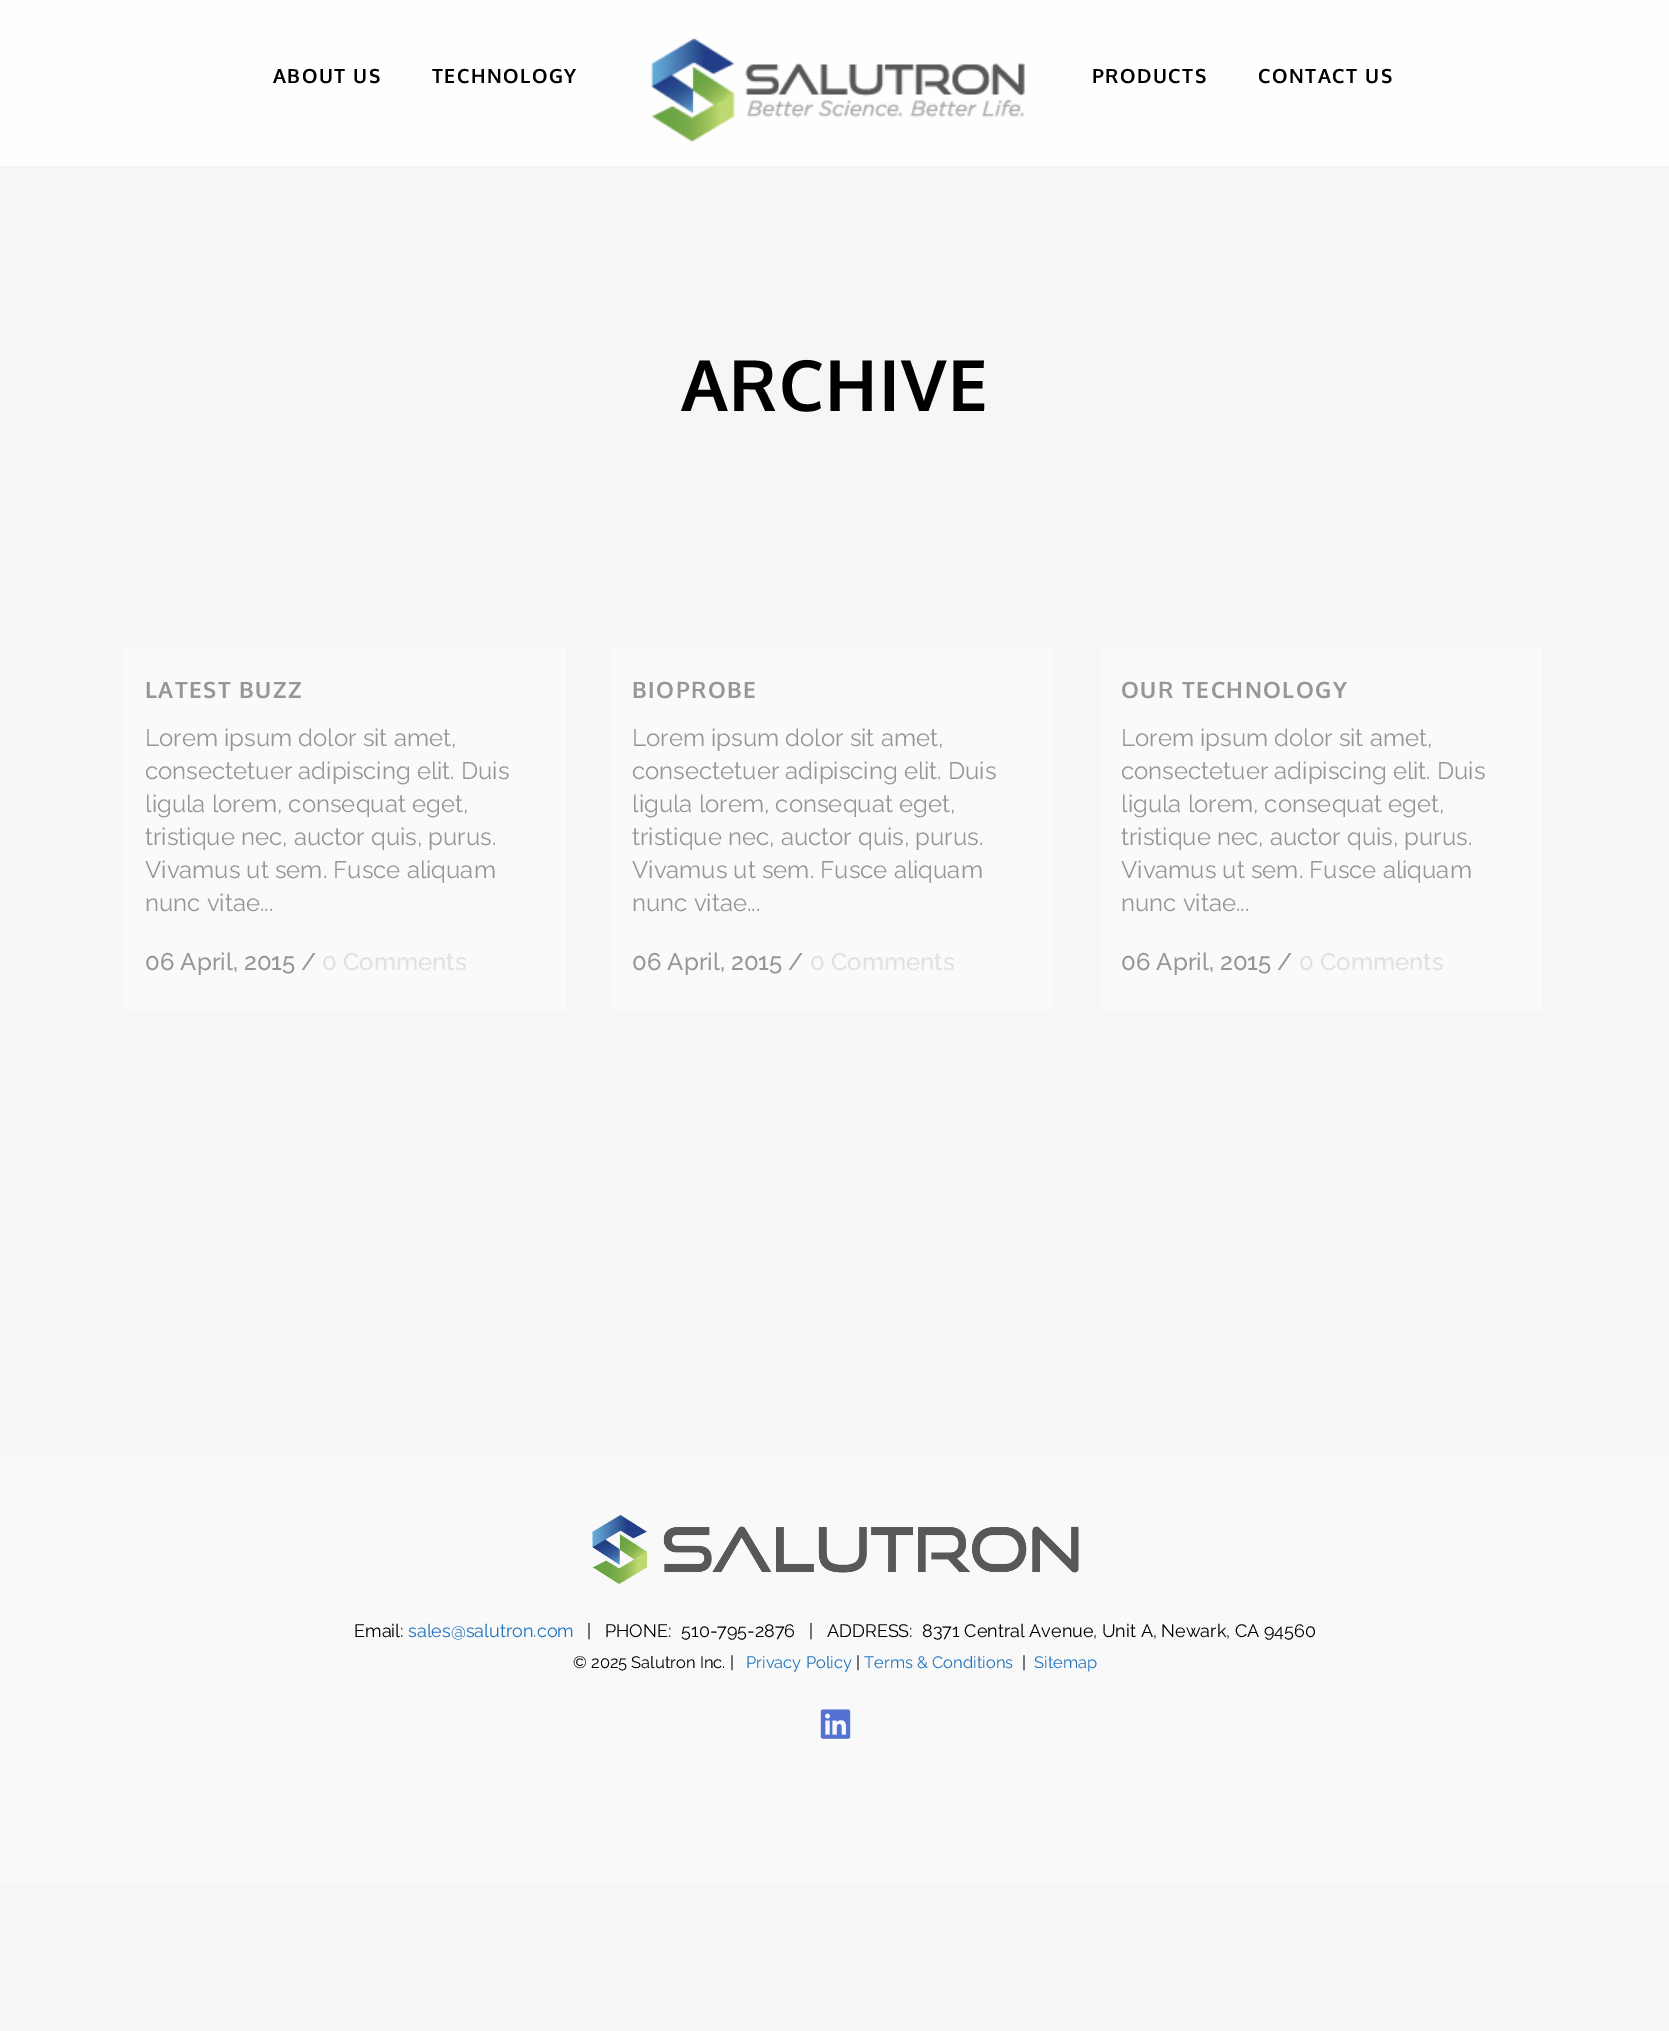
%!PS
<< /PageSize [1669 2031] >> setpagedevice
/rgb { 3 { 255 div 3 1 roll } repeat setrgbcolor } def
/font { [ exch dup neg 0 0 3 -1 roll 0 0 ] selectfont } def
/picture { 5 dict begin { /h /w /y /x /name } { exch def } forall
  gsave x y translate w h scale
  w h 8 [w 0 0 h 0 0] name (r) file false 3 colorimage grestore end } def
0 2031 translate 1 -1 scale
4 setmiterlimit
246 246 246 rgb
0 0 1669 2031 rectfill
254 254 254 rgb
0 0 1669 164 rectfill
255 255 255 rgb
0 164 1669 2 rectfill
(img/1.rgb) 650 38 375 105 picture
[
  [123 647 443 363 250 250 250]
  [611 647 442 363 250 250 250]
  [1100 647 442 363 250 250 250]
  [0 1455 1669 428 249 249 249]
] { aload pop rgb rectfill } forall
(img/2.rgb) 592 1515 487 69 picture
(img/3.rgb) 820 1709 31 30 picture
/Oxygen-Bold 19.5 font
0 0 0 rgb
273 83 moveto 1.5 0 (ABOUT US) ashow
432 83 moveto 1.5 0 (TECHNOLOGY) ashow
1092 83 moveto 1.5 0 (PRODUCTS) ashow
1258 83 moveto 1.5 0 (CONTACT US) ashow
/Oxygen-Bold 70.5 font
681 411 moveto 1.5 0 (ARCHIVE) ashow
/Oxygen-Bold 22.5 font
150 150 150 rgb
145 698 moveto 1.5 0 (LATEST BUZZ) ashow
/Raleway-Regular 24 font
[
  [(Lorem ipsum dolor sit amet,) 145 746]
  [(consectetuer adipiscing elit. Duis) 145 779]
  [(ligula lorem, consequat eget,) 145 812]
  [(tristique nec, auctor quis, purus.) 145 845]
  [(Vivamus ut sem. Fusce aliquam) 145 878]
  [(nunc vitae...) 145 911]
] { aload pop moveto show } forall
/Raleway-Medium 24 font
145 970 moveto (06 April, 2015 /) show
224 224 224 rgb
322 970 moveto (0 Comments) show
/Oxygen-Bold 22.5 font
150 150 150 rgb
632 698 moveto 1.5 0 (BIOPROBE) ashow
/Raleway-Regular 24 font
[
  [(Lorem ipsum dolor sit amet,) 632 746]
  [(consectetuer adipiscing elit. Duis) 632 779]
  [(ligula lorem, consequat eget,) 632 812]
  [(tristique nec, auctor quis, purus.) 632 845]
  [(Vivamus ut sem. Fusce aliquam) 632 878]
  [(nunc vitae...) 632 911]
] { aload pop moveto show } forall
/Raleway-Medium 24 font
632 970 moveto (06 April, 2015 /) show
224 224 224 rgb
810 970 moveto (0 Comments) show
/Oxygen-Bold 22.5 font
150 150 150 rgb
1121 698 moveto 1.5 0 (OUR TECHNOLOGY) ashow
/Raleway-Regular 24 font
[
  [(Lorem ipsum dolor sit amet,) 1121 746]
  [(consectetuer adipiscing elit. Duis) 1121 779]
  [(ligula lorem, consequat eget,) 1121 812]
  [(tristique nec, auctor quis, purus.) 1121 845]
  [(Vivamus ut sem. Fusce aliquam) 1121 878]
  [(nunc vitae...) 1121 911]
] { aload pop moveto show } forall
/Raleway-Medium 24 font
1121 970 moveto (06 April, 2015 /) show
224 224 224 rgb
1299 970 moveto (0 Comments) show
/Raleway-Regular 18 font
0 0 0 rgb
354 1637 moveto (Email:) show
30 115 190 rgb
408 1637 moveto (sales@salutron.com) show
0 0 0 rgb
587 1637 moveto (|   PHONE:) show
681 1637 moveto (510-795-2876   |   ADDRESS:  8371 Central Avenue, Unit A, Newark, CA 94560) show
/Raleway-Regular 16.5 font
573 1668 moveto (© 2025 Salutron Inc. |) show
30 115 190 rgb
746 1668 moveto (Privacy Policy) show
0 0 0 rgb
856 1668 moveto (|) show
30 115 190 rgb
864 1668 moveto (Terms & Conditions) show
0 0 0 rgb
1022 1668 moveto (|) show
30 115 190 rgb
1034 1668 moveto (Sitemap) show
showpage
